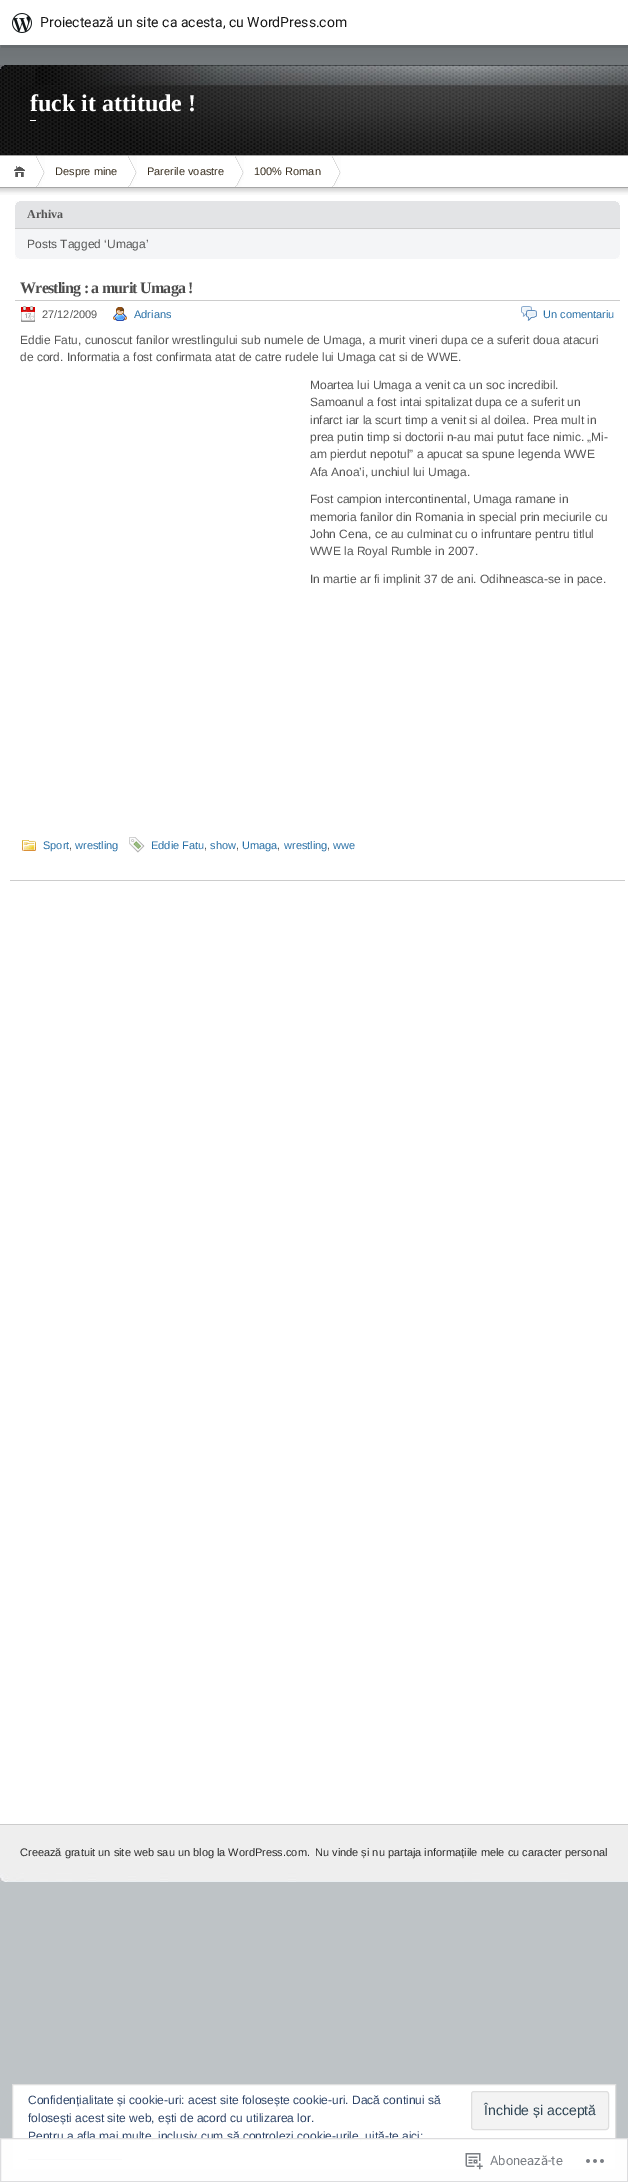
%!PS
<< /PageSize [628 2182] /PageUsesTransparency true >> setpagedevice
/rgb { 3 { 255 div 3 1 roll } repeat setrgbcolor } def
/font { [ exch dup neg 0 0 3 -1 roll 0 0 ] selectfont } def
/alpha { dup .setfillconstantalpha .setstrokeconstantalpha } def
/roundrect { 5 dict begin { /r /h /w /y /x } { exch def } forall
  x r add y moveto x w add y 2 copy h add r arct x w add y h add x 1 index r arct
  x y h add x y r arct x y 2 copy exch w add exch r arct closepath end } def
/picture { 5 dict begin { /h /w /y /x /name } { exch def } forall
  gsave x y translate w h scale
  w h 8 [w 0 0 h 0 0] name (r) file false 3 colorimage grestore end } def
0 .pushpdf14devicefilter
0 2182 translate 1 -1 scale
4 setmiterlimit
190 195 198 rgb
0 0 628 2182 rectfill
(img/1.rgb) 0 45 628 20 picture
0.08 alpha
0 0 0 rgb
1 45 moveto 1 48 lineto 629 48 lineto 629 3 lineto 628 3 lineto 628 45 lineto closepath fill
1 alpha
255 255 255 rgb
0 0 628 45 rectfill
(img/2.rgb) 12 13 20 20 picture
(img/3.rgb) 0 65 628 90 picture
[
  [0 155 628 1 166 166 166]
  [30 120 6 1 255 255 255]
  [0 156 628 31 255 255 255]
  [0 187 628 1 166 166 166]
] { aload pop rgb rectfill } forall
(img/4.rgb) 14 166 11 11 picture
(img/5.rgb) 36 156 9 31 picture
(img/5.rgb) 128 156 9 31 picture
(img/6.rgb) 235 156 9 31 picture
(img/5.rgb) 332 156 9 31 picture
255 255 255 rgb
0 195 628 1629 rectfill
(img/7.rgb) 0 188 628 7 picture
227 228 230 rgb
15 201 605 27 rectfill
(img/8.rgb) 15 201 605 4 picture
204 204 204 rgb
15 228 605 1 rectfill
244 245 247 rgb
15 229 605 30 rectfill
(img/9.rgb) 15 255 605 4 picture
204 204 204 rgb
15 300 605 1 rectfill
(img/10.rgb) 21 306 14 16 picture
(img/11.rgb) 113 307 14 14 picture
(img/12.rgb) 521 306 16 15 picture
(img/13.rgb) 22 840 14 11 picture
(img/14.rgb) 129 837 16 16 picture
10 880 615 1 rectfill
(img/15.rgb) 0 1825 628 57 picture
0 1824 628 1 rectfill
255 255 255 rgb
12.5 2084.5 moveto 615.5 2084.5 lineto 615.5 2169.5 lineto 12.5 2169.5 lineto closepath gsave fill grestore
222 222 222 rgb
stroke
243 243 243 rgb
471.5 2091.5 137 38 2.5 roundrect gsave fill grestore
222 222 222 rgb
stroke
46 68 103 rgb
28 2159 94 1 rectfill
/Roboto-Regular 14 font
23 23 23 rgb
40 27 moveto (Proiectează un site ca acesta, cu WordPress.com) show
/LiberationSerif-Bold 24 font
255 255 255 rgb
30 111 moveto (fuck it attitude !) show
/LiberationSans-Regular 11 font
56 46 31 rgb
[
  [(Despre mine) 55 175]
  [(Parerile voastre) 147 175]
  [(100% Roman) 254 175]
] { aload pop moveto show } forall
/LiberationSerif-Bold 12 font
85 85 85 rgb
27 218 moveto (Arhiva) show
/LiberationSans-Regular 12 font
27 248 moveto (Posts Tagged ‘Umaga’) show
/LiberationSerif-Bold 16 font
76 76 76 rgb
20 293 moveto -0.8 0 (Wrestling : a murit Umaga !) ashow
/LiberationSans-Regular 11 font
85 85 85 rgb
42 318 moveto (27/12/2009) show
41 112 166 rgb
134 318 moveto (Adrians) show
543 318 moveto (Un comentariu) show
/LiberationSans-Regular 12 font
85 85 85 rgb
[
  [(Eddie Fatu, cunoscut fanilor wrestlingului sub numele de Umaga, a murit vineri dupa ce a suferit doua atacuri) 20 344]
  [(de cord. Informatia a fost confirmata atat de catre rudele lui Umaga cat si de WWE.) 20 361]
  [(Moartea lui Umaga a venit ca un soc incredibil.) 310 389]
  [(Samoanul a fost intai spitalizat dupa ce a suferit un) 310 406]
  [(infarct iar la scurt timp a venit si al doilea. Prea mult in) 310 424]
  [(prea putin timp si doctorii n-au mai putut face nimic. „Mi-) 310 441]
  [(am pierdut nepotul” a apucat sa spune legenda WWE) 310 458]
  [(Afa Anoa’i, unchiul lui Umaga.) 310 476]
  [(Fost campion intercontinental, Umaga ramane in) 310 503]
  [(memoria fanilor din Romania in special prin meciurile cu) 310 521]
  [(John Cena, ce au culminat cu o infruntare pentru titlul) 310 538]
  [(WWE la Royal Rumble in 2007.) 310 555]
  [(In martie ar fi implinit 37 de ani. Odihneasca-se in pace.) 310 583]
] { aload pop moveto show } forall
/LiberationSans-Regular 11 font
41 112 166 rgb
43 849 moveto (Sport) show
85 85 85 rgb
69 849 moveto (,) show
41 112 166 rgb
75 849 moveto (wrestling) show
151 849 moveto (Eddie Fatu) show
85 85 85 rgb
204 849 moveto (,) show
41 112 166 rgb
210 849 moveto (show) show
85 85 85 rgb
236 849 moveto (,) show
41 112 166 rgb
242 849 moveto (Umaga) show
85 85 85 rgb
277 849 moveto (,) show
41 112 166 rgb
284 849 moveto (wrestling) show
85 85 85 rgb
327 849 moveto (,) show
41 112 166 rgb
333 849 moveto (wwe) show
42 42 42 rgb
20 1856 moveto (Creează gratuit un site web sau un blog la WordPress.com.) show
315 1856 moveto (Nu vinde și nu partaja informațiile mele cu caracter personal) show
/LiberationSans-Regular 12 font
46 68 103 rgb
28 2104 moveto (Confidențialitate și cookie-uri: acest site folosește cookie-uri. Dacă continui să) show
/LiberationSans-Regular 14 font
46 68 83 rgb
484 2115 moveto (Închide și acceptă) show
/LiberationSans-Regular 12 font
46 68 103 rgb
28 2122 moveto (folosești acest site web, ești de acord cu utilizarea lor.) show
28 2140 moveto (Pentru a afla mai multe, inclusiv cum să controlezi cookie-urile, uită-te aici:) show
0.98 alpha
255 255 255 rgb
0 2138 628 44 rectfill
220 220 222 rgb
0.5 2138.5 627 43 rectstroke
1 alpha
(img/16.rgb) 465 2153 18 17 picture
/Roboto-Regular 13 font
123 127 133 rgb
490 2165 moveto (Abonează-te) show
(img/17.rgb) 586 2159 18 4 picture
.poppdf14devicefilter showpage
